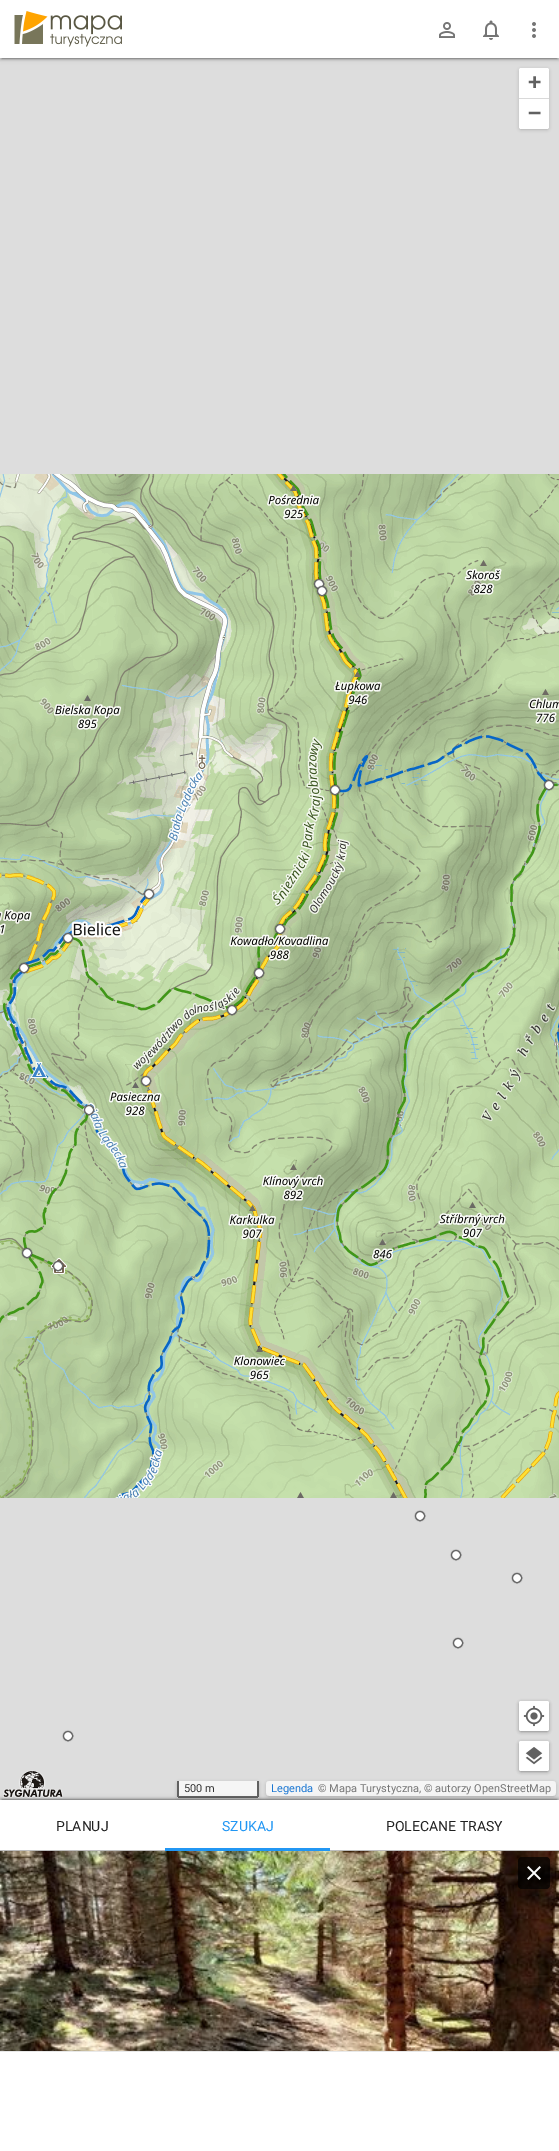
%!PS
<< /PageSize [559 2151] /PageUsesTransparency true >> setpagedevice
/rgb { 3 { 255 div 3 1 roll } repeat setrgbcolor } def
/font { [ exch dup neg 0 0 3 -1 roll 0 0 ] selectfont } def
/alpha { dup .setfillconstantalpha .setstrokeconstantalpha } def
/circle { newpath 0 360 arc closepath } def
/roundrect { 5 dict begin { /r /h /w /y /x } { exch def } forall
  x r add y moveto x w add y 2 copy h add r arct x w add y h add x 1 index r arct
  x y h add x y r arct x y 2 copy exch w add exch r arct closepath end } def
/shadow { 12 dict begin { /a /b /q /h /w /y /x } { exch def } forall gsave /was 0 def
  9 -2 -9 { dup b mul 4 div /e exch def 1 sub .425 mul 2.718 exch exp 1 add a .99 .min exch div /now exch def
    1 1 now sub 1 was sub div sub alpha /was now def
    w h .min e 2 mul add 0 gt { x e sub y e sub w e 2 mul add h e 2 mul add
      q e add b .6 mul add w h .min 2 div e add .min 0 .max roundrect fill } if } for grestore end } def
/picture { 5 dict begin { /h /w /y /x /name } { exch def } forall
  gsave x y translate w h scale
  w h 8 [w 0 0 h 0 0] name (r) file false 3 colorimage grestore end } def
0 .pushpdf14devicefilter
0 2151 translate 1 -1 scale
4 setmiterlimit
221 221 221 rgb
0 0 559 2151 rectfill
0 0 0 rgb
520 70 28 59 1 2 0.3 shadow
255 255 255 rgb
521 68 moveto 547 68 lineto 548 68 549 69 549 70 curveto 549 99 lineto 519 99 lineto 519 70 lineto 519 69 520 68 521 68 curveto closepath fill
217 217 217 rgb
519 98 30 1 rectfill
255 255 255 rgb
519 99 moveto 549 99 lineto 549 127 lineto 549 128 548 129 547 129 curveto 521 129 lineto 520 129 519 128 519 127 curveto closepath fill
(img/1.rgb) 3 1770 60 28 picture
0 0 0 rgb
520 1703 28 28 1 2 0.3 shadow
520 1703 28 28 1 2 0.3 shadow
255 255 255 rgb
519 1701 30 30 2 roundrect fill
(img/2.rgb) 523 1705 22 22 picture
0 0 0 rgb
520 1743 28 28 1 2 0.3 shadow
520 1743 28 28 1 2 0.3 shadow
255 255 255 rgb
519 1741 30 30 2 roundrect fill
(img/3.rgb) 525 1747 18 18 picture
gsave
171 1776 moveto 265 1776 lineto 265 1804 lineto 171 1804 lineto closepath 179 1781 moveto 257 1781 lineto 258 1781 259 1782 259 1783 curveto 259 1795 lineto 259 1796 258 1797 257 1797 curveto 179 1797 lineto 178 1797 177 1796 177 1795 curveto 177 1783 lineto 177 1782 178 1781 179 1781 curveto closepath eoclip newpath
0 0 0 rgb
178 1783 80 14 1 2 0.3 shadow
grestore
0.7 alpha
177 1781 moveto 259 1781 lineto 259 1796 lineto 259 1797 258 1798 257 1798 curveto 179 1798 lineto 178 1798 177 1797 177 1796 curveto closepath fill
1 alpha
[
  [257 1781 2 16 97 97 97]
  [178 1796 80 2 97 97 97]
  [177 1781 2 16 97 97 97]
] { aload pop rgb rectfill } forall
gsave
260 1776 moveto 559 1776 lineto 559 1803 lineto 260 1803 lineto closepath 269 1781 moveto 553 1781 lineto 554.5 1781 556 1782.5 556 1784 curveto 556 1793 lineto 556 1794.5 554.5 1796 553 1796 curveto 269 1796 lineto 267.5 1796 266 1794.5 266 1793 curveto 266 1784 lineto 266 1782.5 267.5 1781 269 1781 curveto closepath eoclip newpath
0 0 0 rgb
267 1783 288 13 2 2 0.3 shadow
grestore
0.7 alpha
255 255 255 rgb
266 1781 290 15 3 roundrect fill
1 alpha
(img/4.rgb) 0 474 205 256 picture
(img/5.rgb) 205 474 256 256 picture
(img/6.rgb) 461 474 98 256 picture
(img/7.rgb) 0 730 205 256 picture
(img/8.rgb) 205 730 256 256 picture
(img/9.rgb) 461 730 98 256 picture
(img/10.rgb) 0 986 205 256 picture
(img/11.rgb) 205 986 256 256 picture
(img/12.rgb) 461 986 98 256 picture
(img/13.rgb) 0 1242 205 256 picture
(img/14.rgb) 205 1242 256 256 picture
(img/15.rgb) 461 1242 98 256 picture
0 0 0 rgb
314 579 10 10 5 0.5 0.5 shadow
255 255 255 rgb
319 584 4.5 circle gsave fill grestore
102 102 102 rgb
stroke
0 0 0 rgb
317 586 10 10 5 0.5 0.5 shadow
255 255 255 rgb
322 591 4.5 circle gsave fill grestore
102 102 102 rgb
stroke
0 0 0 rgb
330 785 10 10 5 0.5 0.5 shadow
255 255 255 rgb
335 790 4.5 circle gsave fill grestore
102 102 102 rgb
stroke
0 0 0 rgb
544 780 10 10 5 0.5 0.5 shadow
255 255 255 rgb
549 785 4.5 circle gsave fill grestore
102 102 102 rgb
stroke
0 0 0 rgb
144 889 10 10 5 0.5 0.5 shadow
255 255 255 rgb
149 894 4.5 circle gsave fill grestore
102 102 102 rgb
stroke
0 0 0 rgb
63 933 10 10 5 0.5 0.5 shadow
255 255 255 rgb
68 938 4.5 circle gsave fill grestore
102 102 102 rgb
stroke
0 0 0 rgb
275 924 10 10 5 0.5 0.5 shadow
255 255 255 rgb
280 929 4.5 circle gsave fill grestore
102 102 102 rgb
stroke
0 0 0 rgb
19 963 10 10 5 0.5 0.5 shadow
255 255 255 rgb
24 968 4.5 circle gsave fill grestore
102 102 102 rgb
stroke
0 0 0 rgb
254 968 10 10 5 0.5 0.5 shadow
255 255 255 rgb
259 973 4.5 circle gsave fill grestore
102 102 102 rgb
stroke
0 0 0 rgb
227 1005 10 10 5 0.5 0.5 shadow
255 255 255 rgb
232 1010 4.5 circle gsave fill grestore
102 102 102 rgb
stroke
0 0 0 rgb
141 1076 10 10 5 0.5 0.5 shadow
255 255 255 rgb
146 1081 4.5 circle gsave fill grestore
102 102 102 rgb
stroke
0 0 0 rgb
84 1105 10 10 5 0.5 0.5 shadow
255 255 255 rgb
89 1110 4.5 circle gsave fill grestore
102 102 102 rgb
stroke
0 0 0 rgb
22 1248 10 10 5 0.5 0.5 shadow
255 255 255 rgb
27 1253 4.5 circle gsave fill grestore
102 102 102 rgb
stroke
0 0 0 rgb
53 1261 10 10 5 0.5 0.5 shadow
255 255 255 rgb
58 1266 4.5 circle gsave fill grestore
102 102 102 rgb
stroke
0 0 0 rgb
415 1511 10 10 5 0.5 0.5 shadow
255 255 255 rgb
420 1516 4.5 circle gsave fill grestore
102 102 102 rgb
stroke
0 0 0 rgb
451 1550 10 10 5 0.5 0.5 shadow
255 255 255 rgb
456 1555 4.5 circle gsave fill grestore
102 102 102 rgb
stroke
0 0 0 rgb
512 1573 10 10 5 0.5 0.5 shadow
255 255 255 rgb
517 1578 4.5 circle gsave fill grestore
102 102 102 rgb
stroke
0 0 0 rgb
453 1638 10 10 5 0.5 0.5 shadow
255 255 255 rgb
458 1643 4.5 circle gsave fill grestore
102 102 102 rgb
stroke
0 0 0 rgb
63 1731 10 10 5 0.5 0.5 shadow
255 255 255 rgb
68 1736 4.5 circle gsave fill grestore
102 102 102 rgb
stroke
0 0 0 rgb
0 1799 559 251 0 2.5 0.12 shadow
2 1799 555 247 0 0.5 0.2 shadow
0 1798 559 251 0 1 0.14 shadow
255 255 255 rgb
0 1800 559 50 rectfill
0 0 0 rgb
0 1 559 58 0 2.5 0.12 shadow
2 5 555 54 0 0.5 0.2 shadow
0 2 559 58 0 1 0.14 shadow
255 255 255 rgb
0 0 559 58 rectfill
(img/16.rgb) 14 11 108 36 picture
(img/17.rgb) 439 22 16 16 picture
(img/18.rgb) 483 20 16 20 picture
(img/19.rgb) 532 22 4 16 picture
189 189 189 rgb
0 1850 559 1 rectfill
33 150 243 rgb
165 1848 165 3 rectfill
(img/20.rgb) 0 1851 559 200 picture
0.7 alpha
0 0 0 rgb
518 1857 32 32 4 roundrect fill
1 alpha
(img/21.rgb) 527 1866 14 14 picture
255 255 255 rgb
0 2052 559 99 rectfill
232 232 232 rgb
0 2051 559 1 rectfill
/DejaVuSansMono-Bold 22 font
97 97 97 rgb
528 89 moveto (+) show
528 120 moveto (−) show
/Roboto-Regular 11 font
51 51 51 rgb
184 1792 moveto (500 m) show
25 118 210 rgb
271 1792 moveto (Legenda) show
117 117 117 rgb
318 1792 moveto (© Mapa Turystyczna, © autorzy OpenStreetMap) show
/Roboto-Regular 14 font
33 33 33 rgb
56 1831 moveto (PLANUJ) show
33 150 243 rgb
222 1831 moveto (SZUKAJ) show
33 33 33 rgb
386 1831 moveto (POLECANE TRASY) show
.poppdf14devicefilter showpage
